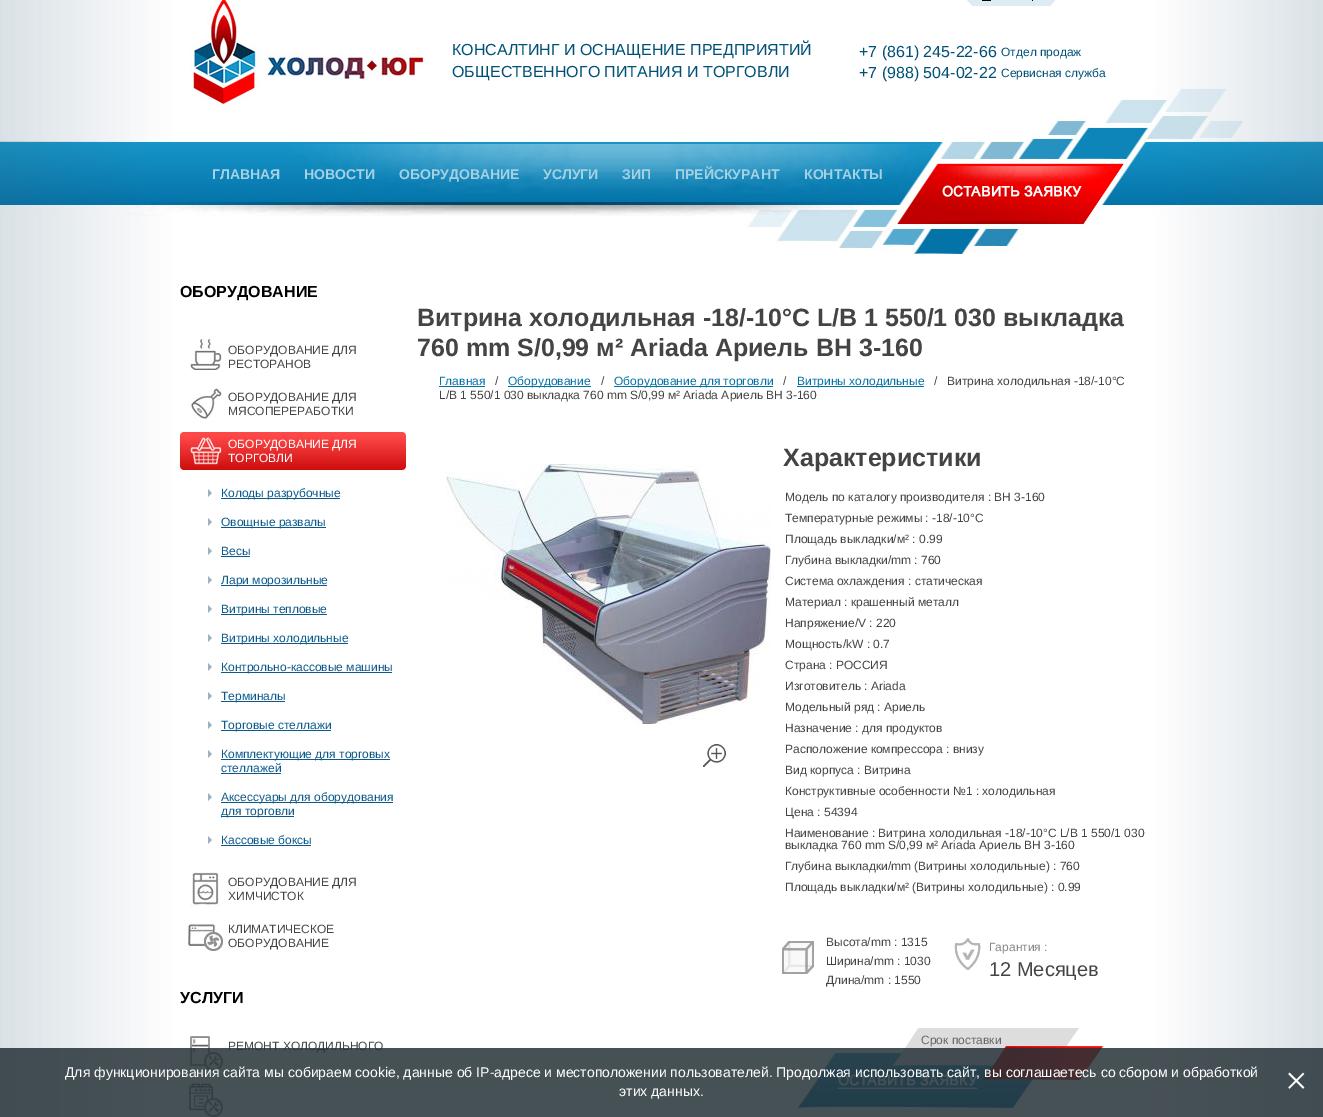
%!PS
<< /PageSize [1323 1117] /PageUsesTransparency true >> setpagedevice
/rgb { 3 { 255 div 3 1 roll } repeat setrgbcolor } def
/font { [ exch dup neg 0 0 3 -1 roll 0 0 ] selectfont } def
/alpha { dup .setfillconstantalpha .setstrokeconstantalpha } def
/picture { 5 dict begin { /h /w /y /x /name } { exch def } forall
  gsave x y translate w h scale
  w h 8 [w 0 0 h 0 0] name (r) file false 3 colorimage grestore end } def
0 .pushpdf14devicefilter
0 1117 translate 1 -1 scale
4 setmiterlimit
255 255 255 rgb
0 0 1323 1117 rectfill
(img/1.rgb) 0 1105 1323 12 picture
(img/2.rgb) 0 254 1323 851 picture
(img/3.rgb) 0 0 1323 254 picture
(img/4.rgb) 190 0 235 107 picture
(img/5.rgb) 966 0 92 6 picture
(img/6.rgb) 981 0 11 1 picture
(img/7.rgb) 1004 0 11 1 picture
(img/8.rgb) 1030 0 4 1 picture
(img/9.rgb) 898 163 226 61 picture
(img/10.rgb) 189 339 33 31 picture
(img/11.rgb) 187 387 35 32 picture
(img/12.rgb) 180 432 226 38 picture
(img/13.rgb) 187 432 38 38 picture
(img/14.rgb) 208 489 4 8 picture
12 90 140 rgb
221 498 119 1 rectfill
(img/14.rgb) 208 518 4 8 picture
221 527 105 1 rectfill
(img/14.rgb) 208 547 4 8 picture
221 556 29 1 rectfill
(img/14.rgb) 208 576 4 8 picture
221 585 106 1 rectfill
(img/14.rgb) 208 605 4 8 picture
221 614 106 1 rectfill
(img/14.rgb) 208 634 4 8 picture
221 643 127 1 rectfill
(img/14.rgb) 208 663 4 8 picture
221 672 171 1 rectfill
(img/14.rgb) 208 692 4 8 picture
221 701 64 1 rectfill
(img/14.rgb) 208 721 4 8 picture
221 730 110 1 rectfill
(img/14.rgb) 208 750 4 8 picture
221 759 169 1 rectfill
221 773 60 1 rectfill
(img/14.rgb) 208 793 4 8 picture
221 802 172 1 rectfill
221 816 73 1 rectfill
(img/14.rgb) 208 836 4 8 picture
221 845 90 1 rectfill
(img/15.rgb) 190 872 31 34 picture
(img/16.rgb) 188 923 37 28 picture
(img/17.rgb) 188 1036 37 36 picture
(img/18.rgb) 188 1081 37 36 picture
[
  [439 386 46 1 4 114 167]
  [508 386 83 1 4 114 167]
  [614 386 159 1 4 114 167]
  [797 386 127 1 4 114 167]
] { aload pop rgb rectfill } forall
(img/19.rgb) 446 464 325 260 picture
(img/20.rgb) 701 744 25 23 picture
(img/21.rgb) 782 941 32 33 picture
(img/22.rgb) 954 938 27 32 picture
(img/24.rgb) 798 1053 235 55 picture
(img/23.rgb) 892 1028 187 38 picture
/LiberationSans-Regular 16 font
0 80 119 rgb
[
  [(КОНСАЛТИНГ И ОСНАЩЕНИЕ ПРЕДПРИЯТИЙ) 452 55]
  [(ОБЩЕСТВЕННОГО ПИТАНИЯ И ТОРГОВЛИ) 452 77]
  [(+7 \(861\) 245-22-66) 859 57]
] { aload pop moveto show } forall
/LiberationSans-Regular 12 font
1001 56 moveto (Отдел продаж) show
/LiberationSans-Regular 16 font
859 78 moveto (+7 \(988\) 504-02-22) show
/LiberationSans-Regular 12 font
1001 77 moveto (Сервисная служба) show
/LiberationSans-Bold 14 font
164 209 228 rgb
[
  [(ГЛАВНАЯ) 212 179]
  [(НОВОСТИ) 304 179]
  [(ОБОРУДОВАНИЕ) 399 179]
  [(УСЛУГИ) 543 179]
  [(ЗИП) 622 179]
  [(ПРЕЙСКУРАНТ) 675 179]
  [(КОНТАКТЫ) 804 179]
] { aload pop moveto show } forall
/LiberationSans-Bold 16 font
0 0 0 rgb
180 297 moveto (OБОРУДОВАНИЕ) show
/LiberationSans-Regular 12 font
68 68 68 rgb
[
  [(ОБОРУДОВАНИЕ ДЛЯ) 228 354]
  [(РЕСТОРАНОВ) 228 368]
  [(OБОРУДОВАНИЕ ДЛЯ) 228 401]
  [(МЯСОПЕРЕРАБОТКИ) 228 415]
] { aload pop moveto show } forall
255 255 255 rgb
228 448 moveto (ОБОРУДОВАНИЕ ДЛЯ) show
228 462 moveto (ТОРГОВЛИ) show
12 90 140 rgb
[
  [(Колоды разрубочные) 221 497]
  [(Овощные развалы) 221 526]
  [(Весы) 221 555]
  [(Лари морозильные) 221 584]
  [(Витрины тепловые) 221 613]
  [(Витрины холодильные) 221 642]
  [(Контрольно-кассовые машины) 221 671]
  [(Терминалы) 221 700]
  [(Торговые стеллажи) 221 729]
  [(Комплектующие для торговых) 221 758]
  [(стеллажей) 221 772]
  [(Аксессуары для оборудования) 221 801]
  [(для торговли) 221 815]
  [(Кассовые боксы) 221 844]
] { aload pop moveto show } forall
68 68 68 rgb
[
  [(ОБОРУДОВАНИЕ ДЛЯ) 228 886]
  [(ХИМЧИСТОК) 228 900]
  [(КЛИМАТИЧЕСКОЕ) 228 933]
  [(ОБОРУДОВАНИЕ) 228 947]
] { aload pop moveto show } forall
/LiberationSans-Bold 16 font
0 0 0 rgb
180 1003 moveto (УСЛУГИ) show
/LiberationSans-Regular 12 font
68 68 68 rgb
228 1050 moveto (РЕМОНТ ХОЛОДИЛЬНОГО) show
/LiberationSans-Bold 25 font
417 326 moveto (Витрина холодильная -18/-10°C L/B 1 550/1 030 выкладка) show
417 356 moveto (760 mm S/0,99 м² Ariada Ариель ВН 3-160) show
/LiberationSans-Regular 12 font
4 114 167 rgb
439 385 moveto (Главная) show
68 68 68 rgb
495 385 moveto (/) show
4 114 167 rgb
508 385 moveto (Оборудование) show
68 68 68 rgb
601 385 moveto (/) show
4 114 167 rgb
614 385 moveto (Оборудование для торговли) show
68 68 68 rgb
783 385 moveto (/) show
4 114 167 rgb
797 385 moveto (Витрины холодильные) show
68 68 68 rgb
[
  [(/) 934 385]
  [(Витрина холодильная -18/-10°C) 947 385]
  [(L/B 1 550/1 030 выкладка 760 mm S/0,99 м² Ariada Ариель ВН 3-160) 439 399]
] { aload pop moveto show } forall
/LiberationSans-Bold 25 font
783 466 moveto (Характеристики) show
/LiberationSans-Regular 12 font
[
  [(Модель по каталогу производителя : ВН 3-160) 785 501]
  [(Температурные режимы : -18/-10°C) 785 522]
  [(Площадь выкладки/м² : 0.99) 785 543]
  [(Глубина выкладки/mm : 760) 785 564]
  [(Система охлаждения : статическая) 785 585]
  [(Материал : крашенный металл) 785 606]
  [(Напряжение/V : 220) 785 627]
  [(Мощность/kW : 0.7) 785 648]
  [(Страна : РОССИЯ) 785 669]
  [(Изготовитель : Ariada) 785 690]
  [(Модельный ряд : Ариель) 785 711]
  [(Назначение : для продуктов) 785 732]
  [(Расположение компрессора : внизу) 785 753]
  [(Вид корпуса : Витрина) 785 774]
  [(Конструктивные особенности №1 : холодильная) 785 795]
  [(Цена : 54394) 785 816]
  [(Наименование : Витрина холодильная -18/-10°C L/B 1 550/1 030) 785 837]
  [(выкладка 760 mm S/0,99 м² Ariada Ариель ВН 3-160) 785 849]
  [(Глубина выкладки/mm \(Витрины холодильные\) : 760) 785 870]
  [(Площадь выкладки/м² \(Витрины холодильные\) : 0.99) 785 891]
  [(Высота/mm : 1315) 826 946]
  [(Ширина/mm : 1030) 826 965]
  [(Длина/mm : 1550) 826 984]
] { aload pop moveto show } forall
135 135 135 rgb
989 951 moveto (Гарантия :) show
/LiberationSans-Regular 20 font
68 68 68 rgb
989 976 moveto (12 Месяцев) show
/LiberationSans-Regular 12 font
102 102 102 rgb
921 1044 moveto (Срок поставки) show
(img/25.rgb) 983 1046 120 34 picture
0.85 alpha
38 50 56 rgb
0 1048 1323 69 rectfill
/LiberationSans-Regular 14 font
1 alpha
255 255 255 rgb
65 1077 moveto (Для функционирования сайта мы собираем cookie, данные об IP-адресе и местоположении пользователей. Продолжая использовать сайт, вы соглашаетесь со сбором и обработкой) show
/LiberationSerif-Regular 40 font
1285 1094 moveto (×) show
/LiberationSans-Regular 14 font
619 1096 moveto (этих данных.) show
.poppdf14devicefilter showpage
